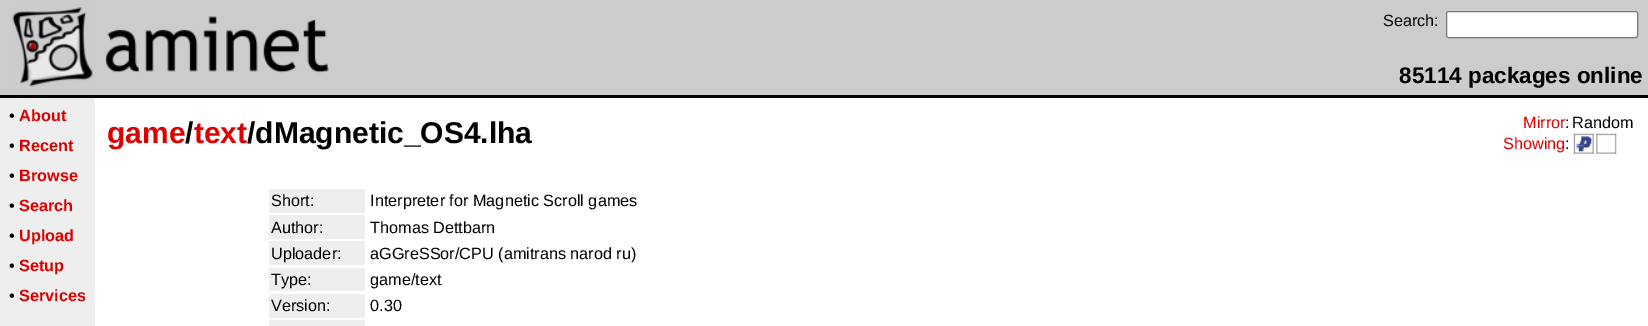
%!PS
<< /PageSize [1648 326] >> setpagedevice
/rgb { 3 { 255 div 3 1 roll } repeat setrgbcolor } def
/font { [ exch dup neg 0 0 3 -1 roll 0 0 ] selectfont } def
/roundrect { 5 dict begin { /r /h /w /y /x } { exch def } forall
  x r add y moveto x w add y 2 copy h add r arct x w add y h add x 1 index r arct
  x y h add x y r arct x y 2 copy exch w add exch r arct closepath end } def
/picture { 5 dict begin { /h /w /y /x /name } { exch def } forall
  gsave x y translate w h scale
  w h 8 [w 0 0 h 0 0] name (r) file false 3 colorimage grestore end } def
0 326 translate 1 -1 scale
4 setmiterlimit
255 255 255 rgb
0 0 1648 326 rectfill
204 204 204 rgb
0 0 1648 95 rectfill
(img/1.rgb) 12 7 81 80 picture
(img/2.rgb) 105 16 224 57 picture
255 255 255 rgb
1446.5 11.5 191 26 2 roundrect gsave fill grestore
118 118 118 rgb
stroke
0 0 0 rgb
0 95 1648 3 rectfill
238 238 238 rgb
0 98 95 228 rectfill
(img/3.rgb) 1573 133 21 21 picture
(img/4.rgb) 1596 133 21 21 picture
[
  [269 189 96 24 238 238 238]
  [269 215 96 24 238 238 238]
  [269 241 96 24 238 238 238]
  [269 268 96 23 238 238 238]
  [269 294 96 24 238 238 238]
  [269 320 96 6 238 238 238]
] { aload pop rgb rectfill } forall
/LiberationSans-Regular 16.25 font
0 0 0 rgb
1383 26 moveto (Search:) show
/LiberationSans-Bold 22.5 font
1399 83 moveto (85114 packages online) show
/LiberationSans-Regular 16.25 font
9 121 moveto (•) show
/LiberationSans-Bold 16.25 font
221 0 0 rgb
19 121 moveto (About) show
/LiberationSans-Regular 16.25 font
0 0 0 rgb
9 151 moveto (•) show
/LiberationSans-Bold 16.25 font
221 0 0 rgb
19 151 moveto (Recent) show
/LiberationSans-Regular 16.25 font
0 0 0 rgb
9 181 moveto (•) show
/LiberationSans-Bold 16.25 font
221 0 0 rgb
19 181 moveto (Browse) show
/LiberationSans-Regular 16.25 font
0 0 0 rgb
9 211 moveto (•) show
/LiberationSans-Bold 16.25 font
221 0 0 rgb
19 211 moveto (Search) show
/LiberationSans-Regular 16.25 font
0 0 0 rgb
9 241 moveto (•) show
/LiberationSans-Bold 16.25 font
221 0 0 rgb
19 241 moveto (Upload) show
/LiberationSans-Regular 16.25 font
0 0 0 rgb
9 271 moveto (•) show
/LiberationSans-Bold 16.25 font
221 0 0 rgb
19 271 moveto (Setup) show
/LiberationSans-Regular 16.25 font
0 0 0 rgb
9 301 moveto (•) show
/LiberationSans-Bold 16.25 font
221 0 0 rgb
19 301 moveto (Services) show
/LiberationSans-Bold 30 font
0 0 0 rgb
247 143 moveto (/dMagnetic_OS4.lha) show
221 0 0 rgb
107 143 moveto (game text) show
0 0 0 rgb
185 143 moveto (/) show
/LiberationSans-Regular 16.25 font
221 0 0 rgb
1523 128 moveto (Mirror) show
0 0 0 rgb
1565 128 moveto (:) show
1572 128 moveto (Random) show
221 0 0 rgb
1503 149 moveto (Showing) show
0 0 0 rgb
[
  [(:) 1565 149]
  [(Short:) 271 206]
  [(Interpreter for Magnetic Scroll games) 370 206]
  [(Author:) 271 233]
  [(Thomas Dettbarn) 370 233]
  [(Uploader:) 271 259]
  [(aGGreSSor/CPU \(amitrans narod ru\)) 370 259]
  [(Type:) 271 285]
  [(game/text) 370 285]
  [(Version:) 271 311]
  [(0.30) 370 311]
] { aload pop moveto show } forall
showpage
